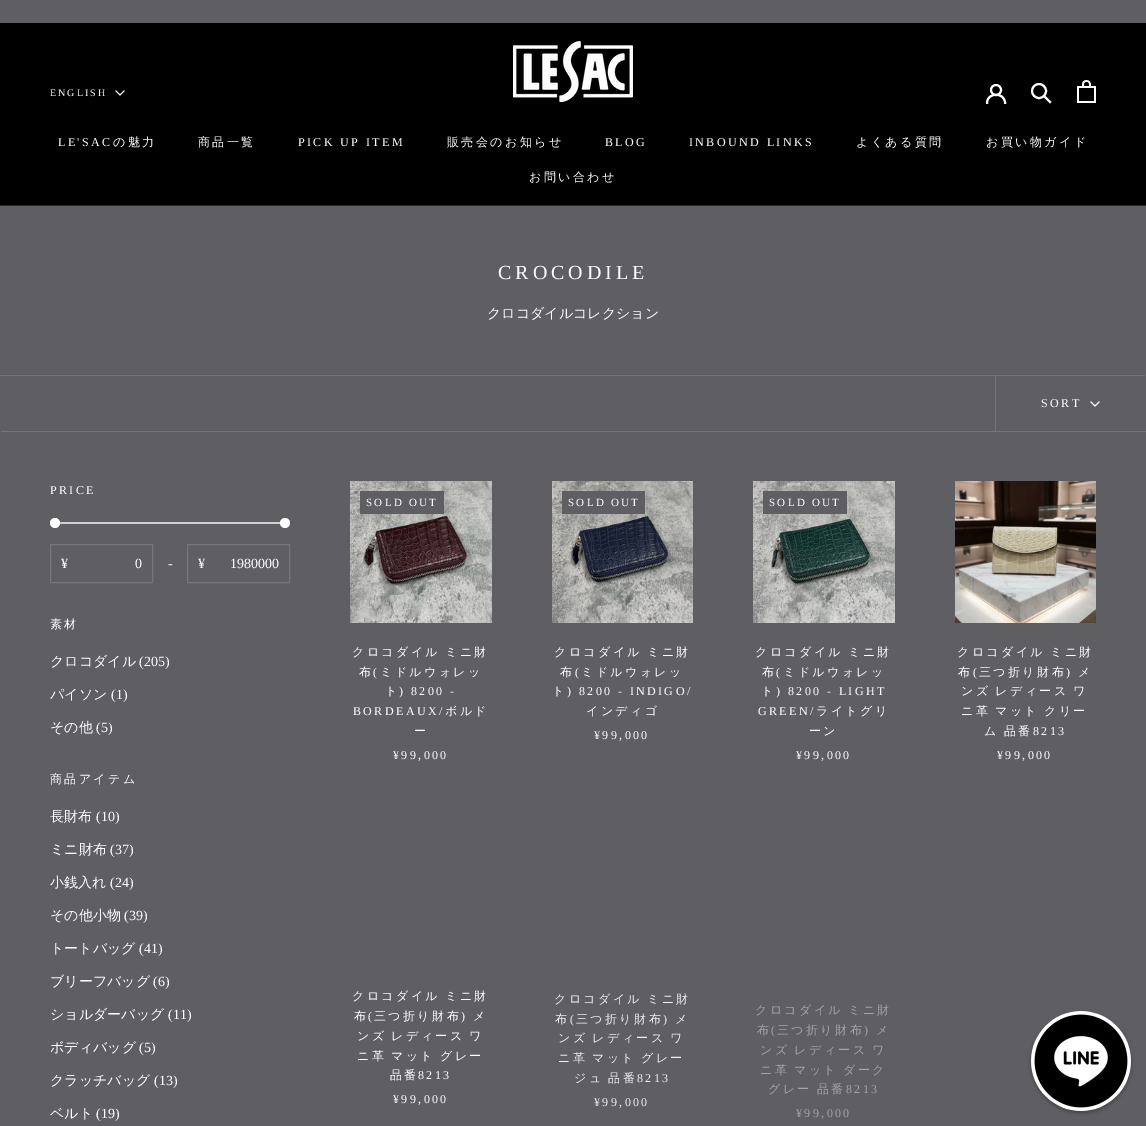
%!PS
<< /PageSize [1146 1126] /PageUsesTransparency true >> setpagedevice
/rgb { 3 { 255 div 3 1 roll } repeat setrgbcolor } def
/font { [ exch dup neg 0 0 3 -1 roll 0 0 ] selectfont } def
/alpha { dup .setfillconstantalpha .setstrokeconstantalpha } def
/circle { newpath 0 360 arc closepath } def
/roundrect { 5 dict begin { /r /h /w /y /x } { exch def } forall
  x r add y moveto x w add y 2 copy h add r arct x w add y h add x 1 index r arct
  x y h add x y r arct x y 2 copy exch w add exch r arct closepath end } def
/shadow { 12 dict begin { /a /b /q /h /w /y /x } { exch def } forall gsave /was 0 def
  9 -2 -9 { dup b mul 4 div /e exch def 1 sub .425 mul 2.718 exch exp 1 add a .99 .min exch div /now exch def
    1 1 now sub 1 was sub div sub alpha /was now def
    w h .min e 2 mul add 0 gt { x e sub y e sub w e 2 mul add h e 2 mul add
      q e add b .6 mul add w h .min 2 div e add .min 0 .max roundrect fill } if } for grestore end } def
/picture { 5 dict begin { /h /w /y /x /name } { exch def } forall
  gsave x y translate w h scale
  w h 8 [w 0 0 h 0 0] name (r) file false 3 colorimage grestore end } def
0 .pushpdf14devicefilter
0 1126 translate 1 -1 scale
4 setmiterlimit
94 94 99 rgb
0 0 1146 1126 rectfill
0 0 0 rgb
0 23 1146 182 rectfill
38 38 38 rgb
0 205 1146 1 rectfill
(img/1.rgb) 513 41 120 61 picture
255 255 255 rgb
2 setlinewidth
2 setlinecap
987 103 moveto 987 92 1005 92 1005 103 curveto stroke
0 setlinecap
996 90 5 circle stroke
2 setlinecap
1050 102 moveto 1044.5 96.5 lineto stroke
0 setlinecap
1039 91 7 circle stroke
(img/2.rgb) 1077 80 19 23 picture
1 setlinewidth
2 setlinecap
124 91 moveto 120 95 lineto 116 91 lineto stroke
118 118 122 rgb
-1 375 moveto -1 430 lineto 0 430 lineto 0 376 lineto 1145 376 lineto 1145 375 lineto closepath fill
1 431 moveto 1 432 lineto 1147 432 lineto 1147 377 lineto 1146 377 lineto 1146 431 lineto closepath fill
995 376 1 55 rectfill
255 255 255 rgb
1099 402 moveto 1095 406 lineto 1091 402 lineto stroke
207 207 208 rgb
50 522 240 2 1 roundrect fill
255 255 255 rgb
55 523 5 circle fill
285 523 5 circle fill
118 118 122 rgb
0 setlinecap
50.5 544.5 102 38 rectstroke
187.5 544.5 102 38 rectstroke
(img/3.rgb) 350 481 142 142 picture
94 94 99 rgb
360 491 84 23 rectfill
(img/4.rgb) 552 481 141 142 picture
562 491 83 23 rectfill
(img/5.rgb) 753 481 142 142 picture
763 491 84 23 rectfill
(img/6.rgb) 955 481 141 142 picture
0 0 0 rgb
1031 1013 100 100 50 2 0.3 shadow
(img/7.rgb) 1031 1011 100 100 picture
/LiberationSerif-Regular 10 font
255 255 255 rgb
50 96 moveto 2 0 (ENGLISH) ashow
/LiberationSerif-Regular 12 font
58 146 moveto 2.4 0 (LE'SAC) ashow
/WenQuanYiZenHei-Medium 12 font
113 146 moveto 2.4 0 (の魅力) ashow
198 146 moveto 2.4 0 (商品一覧) ashow
/LiberationSerif-Regular 12 font
298 146 moveto 2.4 0 (PICK UP ITEM) ashow
/WenQuanYiZenHei-Medium 12 font
447 146 moveto 2.4 0 (販売会のお知らせ) ashow
/LiberationSerif-Regular 12 font
605 146 moveto 2.4 0 (BLOG) ashow
689 146 moveto 2.4 0 (INBOUND LINKS) ashow
/WenQuanYiZenHei-Medium 12 font
856 146 moveto 2.4 0 (よくある質問) ashow
986 146 moveto 2.4 0 (お買い物ガイド) ashow
529 181 moveto 2.4 0 (お問い合わせ) ashow
/LiberationSerif-Regular 20 font
498 279 moveto 4 0 (CROCODILE) ashow
/WenQuanYiZenHei-Medium 14 font
487 318 moveto (クロコダイルコレクション) show
/LiberationSerif-Regular 12 font
1041 407 moveto 2.4 0 (SORT) ashow
50 494 moveto 2.4 0 (PRICE) ashow
/LiberationSerif-Regular 14 font
[
  [(¥) 61 568]
  [(0) 135 568]
  [(-) 168 568]
  [(¥) 198 568]
  [(1980000) 230 568]
] { aload pop moveto show } forall
/WenQuanYiZenHei-Medium 12 font
50 628 moveto 2.4 0 (素材) ashow
/WenQuanYiZenHei-Medium 14 font
50 666 moveto (クロコダイル) show
/LiberationSerif-Regular 14 font
139 666 moveto (\(205\)) show
/WenQuanYiZenHei-Medium 14 font
50 699 moveto (パイソン) show
/LiberationSerif-Regular 14 font
111 699 moveto (\(1\)) show
/WenQuanYiZenHei-Medium 14 font
50 732 moveto (その他) show
/LiberationSerif-Regular 14 font
96 732 moveto (\(5\)) show
/WenQuanYiZenHei-Medium 12 font
50 783 moveto 2.4 0 (商品アイテム) ashow
/WenQuanYiZenHei-Medium 14 font
50 821 moveto (長財布) show
/LiberationSerif-Regular 14 font
96 821 moveto (\(10\)) show
/WenQuanYiZenHei-Medium 14 font
50 854 moveto (ミニ財布) show
/LiberationSerif-Regular 14 font
110 854 moveto (\(37\)) show
/WenQuanYiZenHei-Medium 14 font
50 887 moveto (小銭入れ) show
/LiberationSerif-Regular 14 font
110 887 moveto (\(24\)) show
/WenQuanYiZenHei-Medium 14 font
50 920 moveto (その他小物) show
/LiberationSerif-Regular 14 font
124 920 moveto (\(39\)) show
/WenQuanYiZenHei-Medium 14 font
50 953 moveto (トートバッグ) show
/LiberationSerif-Regular 14 font
139 953 moveto (\(41\)) show
/WenQuanYiZenHei-Medium 14 font
50 986 moveto (ブリーフバッグ) show
/LiberationSerif-Regular 14 font
153 986 moveto (\(6\)) show
/WenQuanYiZenHei-Medium 14 font
50 1019 moveto (ショルダーバッグ) show
/LiberationSerif-Regular 14 font
168 1019 moveto (\(11\)) show
/WenQuanYiZenHei-Medium 14 font
50 1052 moveto (ボディバッグ) show
/LiberationSerif-Regular 14 font
139 1052 moveto (\(5\)) show
/WenQuanYiZenHei-Medium 14 font
50 1085 moveto (クラッチバッグ) show
/LiberationSerif-Regular 14 font
154 1085 moveto (\(13\)) show
/WenQuanYiZenHei-Medium 14 font
50 1118 moveto (ベルト) show
/LiberationSerif-Regular 14 font
96 1118 moveto (\(19\)) show
/LiberationSerif-Regular 11 font
366 506 moveto 2.25 0 (SOLD OUT) ashow
/WenQuanYiZenHei-Medium 12 font
352 656 moveto -1 0 32 2.4 0 (クロコダイル ミニ財) awidthshow
359 676 moveto 2.4 0 (布) ashow
/LiberationSerif-Regular 12 font
373 676 moveto 2.4 0 (\() ashow
/WenQuanYiZenHei-Medium 12 font
380 676 moveto 2.4 0 (ミドルウォレッ) ashow
385 695 moveto 2.4 0 (ト) ashow
/LiberationSerif-Regular 12 font
399 695 moveto 2.4 0 (\) 8200 -) ashow
353 715 moveto 2.4 0 (BORDEAUX/) ashow
/WenQuanYiZenHei-Medium 12 font
445 715 moveto 2.4 0 (ボルド) ashow
414 735 moveto 2.4 0 (ー) ashow
/LiberationSerif-Regular 12 font
393 759 moveto 2.4 0 (¥99,000) ashow
/LiberationSerif-Regular 11 font
568 506 moveto 2.25 0 (SOLD OUT) ashow
/WenQuanYiZenHei-Medium 12 font
554 656 moveto -1 0 32 2.4 0 (クロコダイル ミニ財) awidthshow
560 676 moveto 2.4 0 (布) ashow
/LiberationSerif-Regular 12 font
575 676 moveto 2.4 0 (\() ashow
/WenQuanYiZenHei-Medium 12 font
581 676 moveto 2.4 0 (ミドルウォレッ) ashow
552 695 moveto 2.4 0 (ト) ashow
/LiberationSerif-Regular 12 font
567 695 moveto 2.4 0 (\) 8200 - INDIGO/) ashow
/WenQuanYiZenHei-Medium 12 font
586 715 moveto 2.4 0 (インディゴ) ashow
/LiberationSerif-Regular 12 font
594 739 moveto 2.4 0 (¥99,000) ashow
/LiberationSerif-Regular 11 font
769 506 moveto 2.25 0 (SOLD OUT) ashow
/WenQuanYiZenHei-Medium 12 font
755 656 moveto -1 0 32 2.4 0 (クロコダイル ミニ財) awidthshow
762 676 moveto 2.4 0 (布) ashow
/LiberationSerif-Regular 12 font
776 676 moveto 2.4 0 (\() ashow
/WenQuanYiZenHei-Medium 12 font
783 676 moveto 2.4 0 (ミドルウォレッ) ashow
761 695 moveto 2.4 0 (ト) ashow
/LiberationSerif-Regular 12 font
776 695 moveto 2.4 0 (\) 8200 - LIGHT) ashow
758 715 moveto 2.4 0 (GREEN/) ashow
/WenQuanYiZenHei-Medium 12 font
816 715 moveto 2.4 0 (ライトグリ) ashow
809 735 moveto 2.4 0 (ーン) ashow
/LiberationSerif-Regular 12 font
796 759 moveto 2.4 0 (¥99,000) ashow
/WenQuanYiZenHei-Medium 12 font
957 656 moveto -1 0 32 2.4 0 (クロコダイル ミニ財) awidthshow
958 676 moveto 2.4 0 (布) ashow
/LiberationSerif-Regular 12 font
973 676 moveto 2.4 0 (\() ashow
/WenQuanYiZenHei-Medium 12 font
979 676 moveto 2.4 0 (三つ折り財布) ashow
/LiberationSerif-Regular 12 font
1066 676 moveto 2.4 0 (\)) ashow
/WenQuanYiZenHei-Medium 12 font
1078 676 moveto 2.4 0 (メ) ashow
961 695 moveto -1 0 32 2.4 0 (ンズ レディース ワ) awidthshow
961 715 moveto -1 0 32 2.4 0 (ニ革 マット クリー) awidthshow
984 735 moveto -1 0 32 2.4 0 (ム 品番) awidthshow
/LiberationSerif-Regular 12 font
1033 735 moveto 2.4 0 (8213) ashow
997 759 moveto 2.4 0 (¥99,000) ashow
/WenQuanYiZenHei-Medium 12 font
352 1000 moveto -1 0 32 2.4 0 (クロコダイル ミニ財) awidthshow
354 1020 moveto 2.4 0 (布) ashow
/LiberationSerif-Regular 12 font
368 1020 moveto 2.4 0 (\() ashow
/WenQuanYiZenHei-Medium 12 font
374 1020 moveto 2.4 0 (三つ折り財布) ashow
/LiberationSerif-Regular 12 font
461 1020 moveto 2.4 0 (\)) ashow
/WenQuanYiZenHei-Medium 12 font
473 1020 moveto 2.4 0 (メ) ashow
357 1040 moveto -1 0 32 2.4 0 (ンズ レディース ワ) awidthshow
357 1060 moveto -1 0 32 2.4 0 (ニ革 マット グレー) awidthshow
390 1079 moveto 2.4 0 (品番) ashow
/LiberationSerif-Regular 12 font
418 1079 moveto 2.4 0 (8213) ashow
393 1103 moveto 2.4 0 (¥99,000) ashow
/WenQuanYiZenHei-Medium 12 font
238 238 239 rgb
554 1003 moveto -1 0 32 2.4 0 (クロコダイル ミニ財) awidthshow
555 1023 moveto 2.4 0 (布) ashow
/LiberationSerif-Regular 12 font
570 1023 moveto 2.4 0 (\() ashow
/WenQuanYiZenHei-Medium 12 font
576 1023 moveto 2.4 0 (三つ折り財布) ashow
/LiberationSerif-Regular 12 font
663 1023 moveto 2.4 0 (\)) ashow
/WenQuanYiZenHei-Medium 12 font
675 1023 moveto 2.4 0 (メ) ashow
558 1042 moveto -1 0 32 2.4 0 (ンズ レディース ワ) awidthshow
558 1062 moveto -1 0 32 2.4 0 (ニ革 マット グレー) awidthshow
574 1082 moveto -1 0 32 2.4 0 (ジュ 品番) awidthshow
/LiberationSerif-Regular 12 font
637 1082 moveto 2.4 0 (8213) ashow
594 1106 moveto 2.4 0 (¥99,000) ashow
/WenQuanYiZenHei-Medium 12 font
164 164 167 rgb
755 1014 moveto -1 0 32 2.4 0 (クロコダイル ミニ財) awidthshow
757 1034 moveto 2.4 0 (布) ashow
/LiberationSerif-Regular 12 font
771 1034 moveto 2.4 0 (\() ashow
/WenQuanYiZenHei-Medium 12 font
777 1034 moveto 2.4 0 (三つ折り財布) ashow
/LiberationSerif-Regular 12 font
864 1034 moveto 2.4 0 (\)) ashow
/WenQuanYiZenHei-Medium 12 font
876 1034 moveto 2.4 0 (メ) ashow
760 1054 moveto -1 0 32 2.4 0 (ンズ レディース ワ) awidthshow
760 1074 moveto -1 0 32 2.4 0 (ニ革 マット ダーク) awidthshow
768 1093 moveto -1 0 32 2.4 0 (グレー 品番) awidthshow
/LiberationSerif-Regular 12 font
846 1093 moveto 2.4 0 (8213) ashow
796 1117 moveto 2.4 0 (¥99,000) ashow
.poppdf14devicefilter showpage
